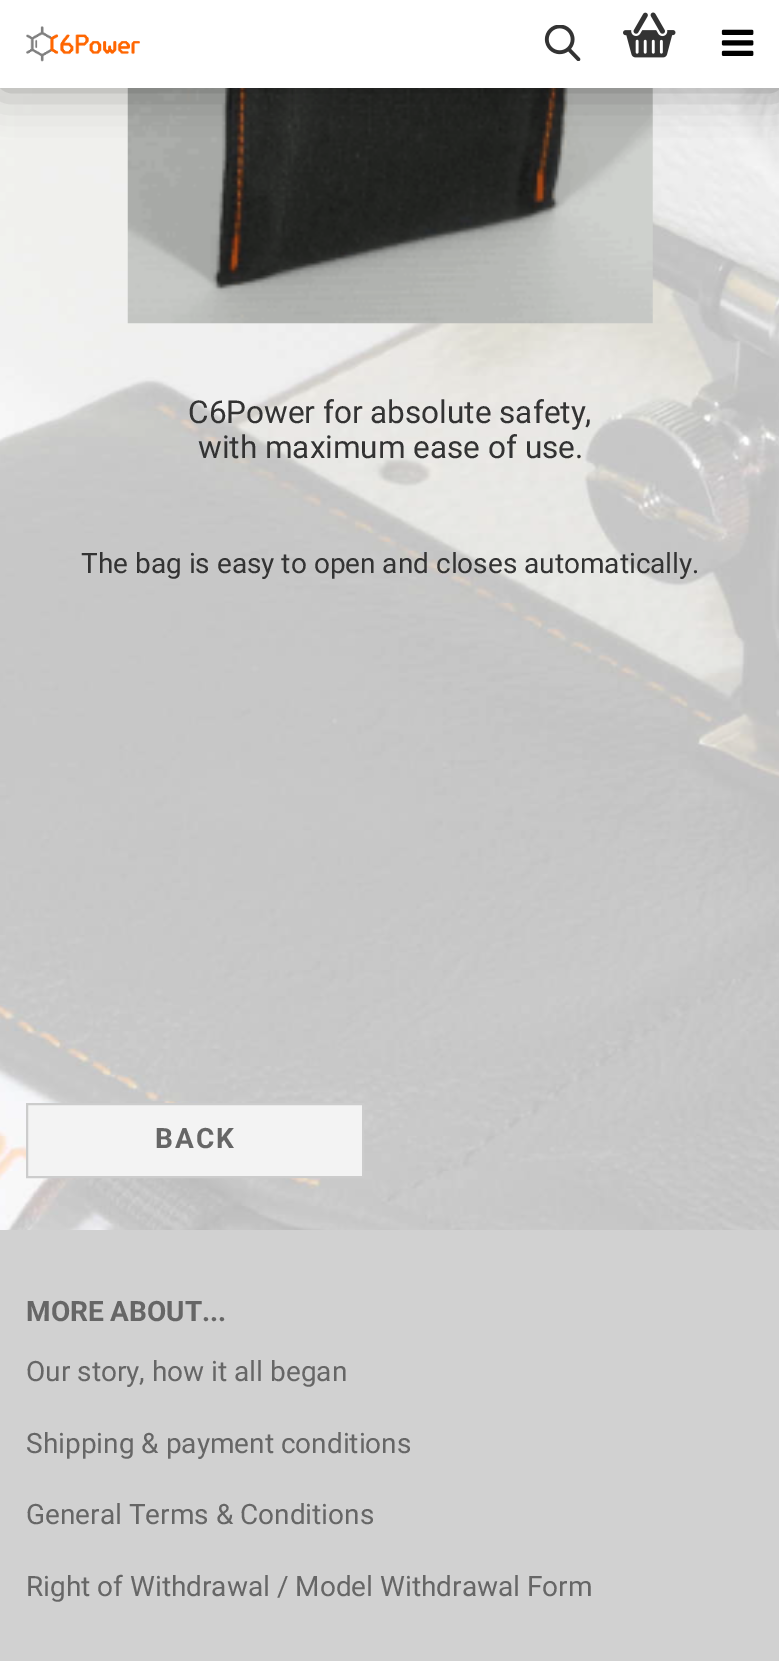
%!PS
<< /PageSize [779 1661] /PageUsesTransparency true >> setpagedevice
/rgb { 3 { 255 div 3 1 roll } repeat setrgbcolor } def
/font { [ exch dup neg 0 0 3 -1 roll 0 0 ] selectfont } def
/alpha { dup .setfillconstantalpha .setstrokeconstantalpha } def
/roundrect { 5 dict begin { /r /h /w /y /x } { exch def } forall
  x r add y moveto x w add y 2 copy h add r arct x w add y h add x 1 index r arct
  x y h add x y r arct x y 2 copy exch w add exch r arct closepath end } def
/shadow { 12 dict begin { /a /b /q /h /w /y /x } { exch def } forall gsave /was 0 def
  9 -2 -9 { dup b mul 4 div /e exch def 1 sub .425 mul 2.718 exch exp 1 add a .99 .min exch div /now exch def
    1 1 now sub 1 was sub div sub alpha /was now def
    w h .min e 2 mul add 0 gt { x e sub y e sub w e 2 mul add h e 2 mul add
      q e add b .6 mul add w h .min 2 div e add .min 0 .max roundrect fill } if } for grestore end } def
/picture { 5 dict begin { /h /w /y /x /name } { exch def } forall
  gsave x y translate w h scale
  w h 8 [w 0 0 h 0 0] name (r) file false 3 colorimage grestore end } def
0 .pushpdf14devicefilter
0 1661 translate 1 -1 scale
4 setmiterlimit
255 255 255 rgb
0 0 779 1661 rectfill
(img/1.rgb) 0 88 779 1142 picture
(img/6.rgb) 127 88 526 236 picture
0 0 0 rgb
0 0 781 88 0 22 0.35 shadow
255 255 255 rgb
0 0 779 88 rectfill
(img/2.rgb) 26 26 114 36 picture
(img/3.rgb) 544 25 37 36 picture
(img/4.rgb) 623 12 53 46 picture
(img/5.rgb) 721 29 33 27 picture
243 243 243 rgb
27 1104 moveto 363 1104 lineto 363 1177 lineto 27 1177 lineto closepath gsave fill grestore
204 204 204 rgb
2 setlinewidth
stroke
209 209 209 rgb
0 1230 779 431 rectfill
/Roboto-Regular 31.5 font
51 51 51 rgb
188 423 moveto (C6Power for absolute safety,) show
198 458 moveto (with maximum ease of use.) show
/Roboto-Regular 28 font
81 573 moveto (The bag is easy to open and closes automatically.) show
/Roboto-Bold 28 font
102 102 102 rgb
155 1148 moveto 2 0 (BACK) ashow
26 1321 moveto (MORE ABOUT...) show
/Roboto-Regular 28 font
[
  [(Our story, how it all began) 26 1381]
  [(Shipping & payment conditions) 26 1453]
  [(General Terms & Conditions) 26 1524]
  [(Right of Withdrawal / Model Withdrawal Form) 26 1596]
] { aload pop moveto show } forall
.poppdf14devicefilter showpage
